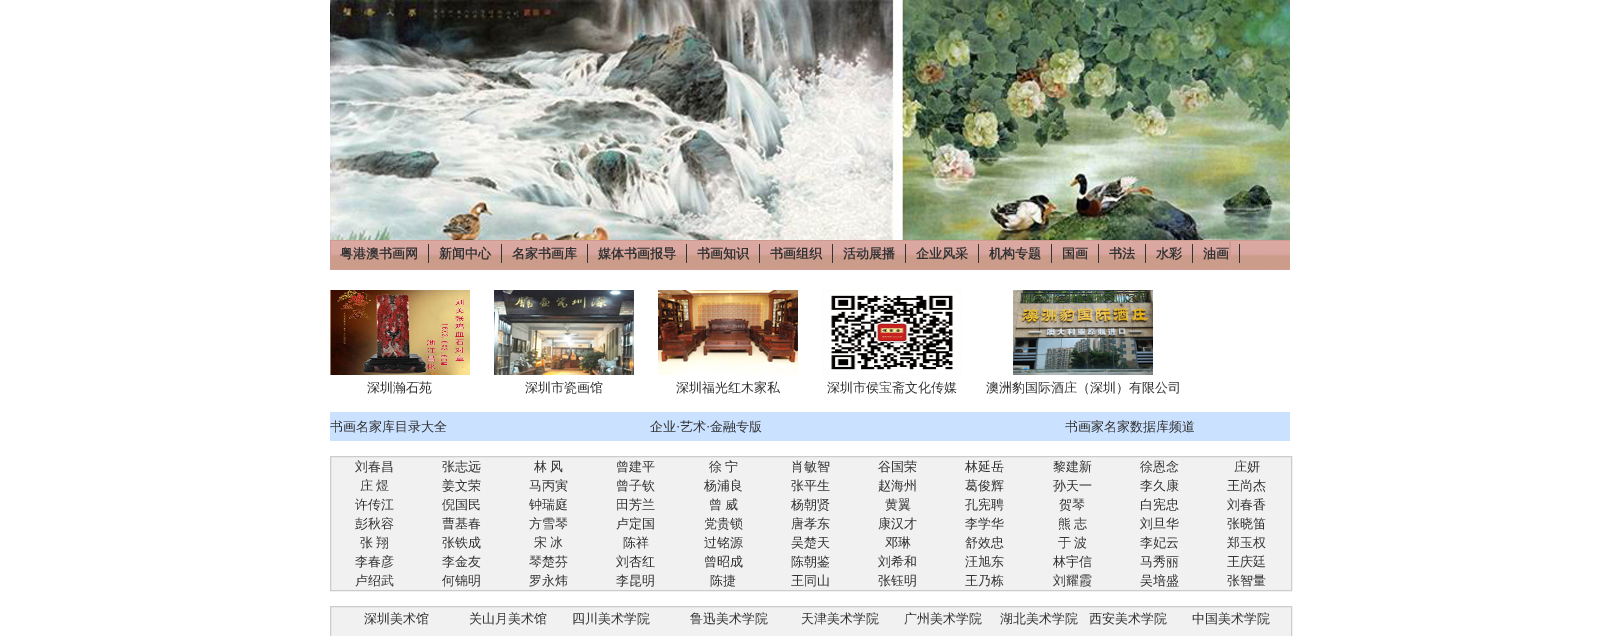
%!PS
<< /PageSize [1619 636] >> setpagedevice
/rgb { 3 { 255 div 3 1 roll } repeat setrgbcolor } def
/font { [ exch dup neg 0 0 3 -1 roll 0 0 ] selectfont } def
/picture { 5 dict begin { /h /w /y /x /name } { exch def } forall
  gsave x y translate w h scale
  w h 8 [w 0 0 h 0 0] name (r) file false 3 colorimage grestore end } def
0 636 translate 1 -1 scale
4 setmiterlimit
255 255 255 rgb
0 0 1619 636 rectfill
(img/1.rgb) 330 0 960 240 picture
(img/2.rgb) 330 240 960 30 picture
[
  [428 244 1 19 51 51 51]
  [501 244 1 19 51 51 51]
  [587 244 1 19 51 51 51]
  [686 244 1 19 51 51 51]
  [759 244 1 19 51 51 51]
  [832 244 1 19 51 51 51]
  [905 244 1 19 51 51 51]
  [978 244 1 19 51 51 51]
  [1051 244 1 19 51 51 51]
  [1098 244 1 19 51 51 51]
  [1145 244 1 19 51 51 51]
  [1192 244 1 19 51 51 51]
  [1239 244 1 19 51 51 51]
] { aload pop rgb rectfill } forall
(img/3.rgb) 330 290 140 85 picture
(img/4.rgb) 494 290 140 85 picture
(img/5.rgb) 658 290 140 85 picture
(img/6.rgb) 822 290 140 85 picture
(img/7.rgb) 1013 290 140 85 picture
202 225 255 rgb
330 412 960 29 rectfill
241 241 241 rgb
330.5 456.5 moveto 1291.5 456.5 lineto 1291.5 590.5 lineto 330.5 590.5 lineto closepath gsave fill grestore
204 204 204 rgb
stroke
241 241 241 rgb
330.5 606.5 moveto 1291.5 606.5 lineto 1291.5 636.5 lineto 330.5 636.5 lineto closepath gsave fill grestore
204 204 204 rgb
stroke
/WenQuanYiZenHei-Bold 13 font
51 51 51 rgb
[
  [(粤港澳书画网) 340 258]
  [(新闻中心) 439 258]
  [(名家书画库) 512 258]
  [(媒体书画报导) 598 258]
  [(书画知识) 697 258]
  [(书画组织) 770 258]
  [(活动展播) 843 258]
  [(企业风采) 916 258]
  [(机构专题) 989 258]
  [(国画) 1062 258]
  [(书法) 1109 258]
  [(水彩) 1156 258]
  [(油画) 1203 258]
] { aload pop moveto show } forall
/WenQuanYiZenHei-Medium 13 font
[
  [(深圳瀚石苑) 367 392]
  [(深圳市瓷画馆) 525 392]
  [(深圳福光红木家私) 676 392]
  [(深圳市侯宝斋文化传媒) 827 392]
  [(澳洲豹国际酒庄（深圳）有限公司) 986 392]
  [(书画名家库目录大全) 330 431]
  [(企业) 650 431]
] { aload pop moveto show } forall
/LiberationSerif-Regular 13 font
676 431 moveto (·) show
/WenQuanYiZenHei-Medium 13 font
680 431 moveto (艺术) show
/LiberationSerif-Regular 13 font
706 431 moveto (·) show
/WenQuanYiZenHei-Medium 13 font
[
  [(金融专版) 710 431]
  [(书画家名家数据库频道) 1065 431]
  [(刘春昌) 355 471]
  [(张志远) 442 471]
] { aload pop moveto show } forall
534 471 moveto -1 0 32 (林 风) widthshow
616 471 moveto (曾建平) show
709 471 moveto -1 0 32 (徐 宁) widthshow
[
  [(肖敏智) 791 471]
  [(谷国荣) 878 471]
  [(林延岳) 965 471]
  [(黎建新) 1053 471]
  [(徐恩念) 1140 471]
  [(庄妍) 1234 471]
] { aload pop moveto show } forall
360 490 moveto -1 0 32 (庄 煜) widthshow
[
  [(姜文荣) 442 490]
  [(马丙寅) 529 490]
  [(曾子钦) 616 490]
  [(杨浦良) 704 490]
  [(张平生) 791 490]
  [(赵海州) 878 490]
  [(葛俊辉) 965 490]
  [(孙天一) 1053 490]
  [(李久康) 1140 490]
  [(王尚杰) 1227 490]
  [(许传江) 355 509]
  [(倪国民) 442 509]
  [(钟瑞庭) 529 509]
  [(田芳兰) 616 509]
] { aload pop moveto show } forall
709 509 moveto -1 0 32 (曾 威) widthshow
[
  [(杨朝贤) 791 509]
  [(黄翼) 885 509]
  [(孔宪聘) 965 509]
  [(贺琴) 1059 509]
  [(白宪忠) 1140 509]
  [(刘春香) 1227 509]
  [(彭秋容) 355 528]
  [(曹基春) 442 528]
  [(方雪琴) 529 528]
  [(卢定国) 616 528]
  [(党贵锁) 704 528]
  [(唐孝东) 791 528]
  [(康汉才) 878 528]
  [(李学华) 965 528]
] { aload pop moveto show } forall
1058 528 moveto -1 0 32 (熊 志) widthshow
1140 528 moveto (刘旦华) show
1227 528 moveto (张晓笛) show
360 547 moveto -1 0 32 (张 翔) widthshow
442 547 moveto (张铁成) show
534 547 moveto -1 0 32 (宋 冰) widthshow
[
  [(陈祥) 623 547]
  [(过铭源) 704 547]
  [(吴楚天) 791 547]
  [(邓琳) 885 547]
  [(舒效忠) 965 547]
] { aload pop moveto show } forall
1058 547 moveto -1 0 32 (于 波) widthshow
[
  [(李妃云) 1140 547]
  [(郑玉权) 1227 547]
  [(李春彦) 355 566]
  [(李金友) 442 566]
  [(琴楚芬) 529 566]
  [(刘杏红) 616 566]
  [(曾昭成) 704 566]
  [(陈朝鉴) 791 566]
  [(刘希和) 878 566]
  [(汪旭东) 965 566]
  [(林宇信) 1053 566]
  [(马秀丽) 1140 566]
  [(王庆廷) 1227 566]
  [(卢绍武) 355 585]
  [(何锦明) 442 585]
  [(罗永炜) 529 585]
  [(李昆明) 616 585]
  [(陈捷) 710 585]
  [(王同山) 791 585]
  [(张钰明) 878 585]
  [(王乃栋) 965 585]
  [(刘耀霞) 1053 585]
  [(吴培盛) 1140 585]
  [(张智量) 1227 585]
  [(深圳美术馆) 364 623]
  [(关山月美术馆) 469 623]
  [(四川美术学院) 572 623]
  [(鲁迅美术学院) 690 623]
  [(天津美术学院) 801 623]
  [(广州美术学院) 904 623]
  [(湖北美术学院) 1000 623]
  [(西安美术学院) 1089 623]
  [(中国美术学院) 1192 623]
] { aload pop moveto show } forall
showpage
